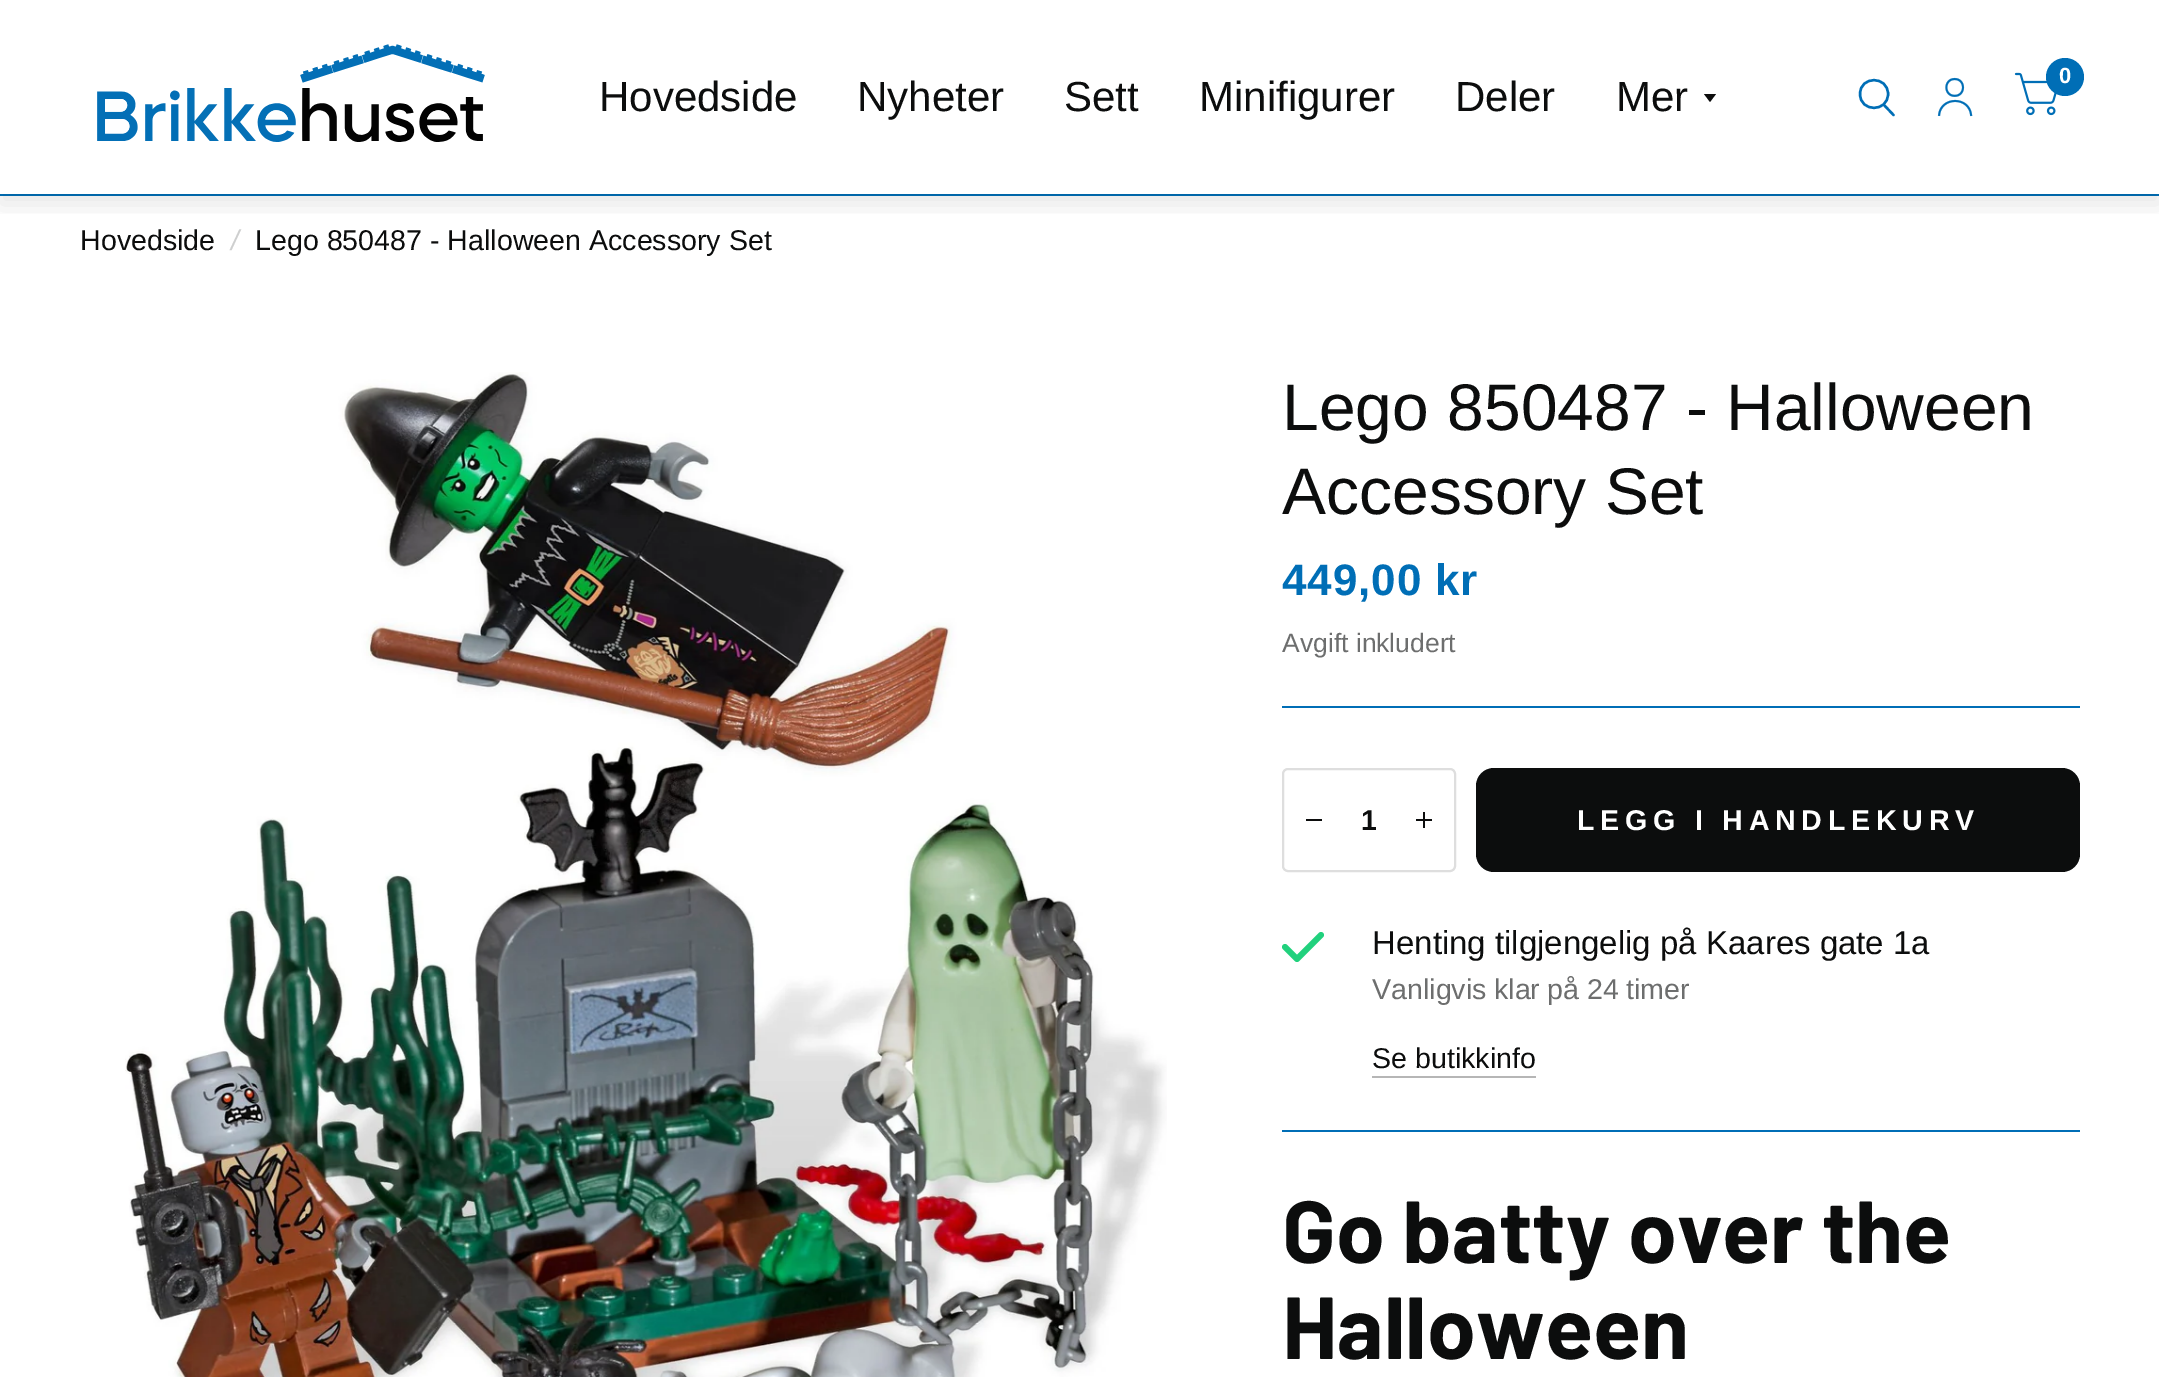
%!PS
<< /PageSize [2159 1377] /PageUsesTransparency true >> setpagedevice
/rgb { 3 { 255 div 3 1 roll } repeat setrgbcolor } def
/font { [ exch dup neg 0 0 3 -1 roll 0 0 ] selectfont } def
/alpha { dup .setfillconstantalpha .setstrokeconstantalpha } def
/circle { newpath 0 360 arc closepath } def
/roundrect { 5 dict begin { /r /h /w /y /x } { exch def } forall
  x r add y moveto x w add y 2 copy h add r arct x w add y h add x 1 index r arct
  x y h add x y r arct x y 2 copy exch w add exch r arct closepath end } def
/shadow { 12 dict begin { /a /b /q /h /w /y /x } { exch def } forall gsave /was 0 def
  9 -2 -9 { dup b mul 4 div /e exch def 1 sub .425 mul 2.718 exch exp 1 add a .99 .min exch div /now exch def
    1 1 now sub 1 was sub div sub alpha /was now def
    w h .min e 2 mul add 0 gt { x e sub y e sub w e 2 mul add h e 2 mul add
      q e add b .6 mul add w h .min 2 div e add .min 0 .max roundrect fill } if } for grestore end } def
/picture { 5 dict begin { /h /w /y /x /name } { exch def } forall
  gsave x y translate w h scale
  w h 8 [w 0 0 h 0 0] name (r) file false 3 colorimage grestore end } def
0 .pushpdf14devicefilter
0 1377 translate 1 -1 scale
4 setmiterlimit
255 255 255 rgb
0 0 2159 1377 rectfill
0 110 182 rgb
0 194 2159 2 rectfill
gsave
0 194 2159 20 rectclip
0 0 0 rgb
0 10 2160 194 0 12 0.1 shadow
grestore
(img/1.rgb) 97 44 388 98 picture
2.4 setlinewidth
1 setlinecap
1 setlinejoin
1884 105 moveto 1893.5 115 lineto 1888 94 moveto 1888 112.5 1860 112.5 1860 94 curveto 1860 75.5 1888 75.5 1888 94 curveto closepath stroke
(img/2.rgb) 1937 77 36 40 picture
(img/3.rgb) 2014 72 43 44 picture
2065 77 19 circle fill
12 13 13 rgb
1704 94 moveto 1716 94 lineto 1710 102 lineto closepath fill
(img/4.rgb) 125 372 1042 1005 picture
0 110 182 rgb
1282 706 798 2 rectfill
222 222 222 rgb
2 setlinewidth
0 setlinecap
0 setlinejoin
1283 769 172 102 5 roundrect stroke
[
  [1306 819 16 2 12 13 13]
  [1423 812 2 16 12 13 13]
  [1416 819 16 2 12 13 13]
] { aload pop rgb rectfill } forall
1476 768 604 104 18 roundrect fill
0 110 182 rgb
1282 1130 798 2 rectfill
33 209 125 rgb
6 setlinewidth
1 setlinecap
1 setlinejoin
1321 935 moveto 1297 959 lineto 1285 947 lineto stroke
182 182 182 rgb
1372 1076 164 2 rectfill
/LiberationSans-Bold 22 font
255 255 255 rgb
2059 83 moveto (0) show
/LiberationSans-Regular 42 font
12 13 13 rgb
[
  [(Hovedside) 599 111]
  [(Nyheter) 857 111]
  [(Sett) 1064 111]
  [(Minifigurer) 1199 111]
  [(Deler) 1455 111]
  [(Mer) 1616 111]
] { aload pop moveto show } forall
/LiberationSans-Regular 28.6 font
80 250 moveto (Hovedside) show
/LiberationSans-Italic 28.6 font
206 207 207 rgb
231 250 moveto (/) show
/LiberationSans-Regular 28.6 font
12 13 13 rgb
255 250 moveto (Lego 850487 - Halloween Accessory Set) show
/LiberationSans-Regular 66 font
1282 430 moveto (Lego 850487 - Halloween) show
1282 514 moveto (Accessory Set) show
/LiberationSans-Bold 44 font
0 110 182 rgb
1282 595 moveto 0.9 0 (449,00 kr) ashow
/LiberationSans-Regular 26.5 font
109 110 110 rgb
1282 652 moveto (Avgift inkludert) show
/LiberationSans-Bold 28.6 font
12 13 13 rgb
1361 830 moveto (1) show
255 255 255 rgb
1577 830 moveto 5.75 0 (LEGG I HANDLEKURV) ashow
/LiberationSans-Regular 33 font
12 13 13 rgb
1372 954 moveto (Henting tilgjengelig på Kaares gate 1a) show
/LiberationSans-Regular 28.6 font
109 110 110 rgb
1372 999 moveto -0.5 0 32 (Vanligvis klar på 24 timer) widthshow
12 13 13 rgb
1372 1068 moveto (Se butikkinfo) show
/Barlow-Bold 88 font
1282 1263 moveto (Go batty over the) show
1282 1359 moveto (Halloween) show
.poppdf14devicefilter showpage
